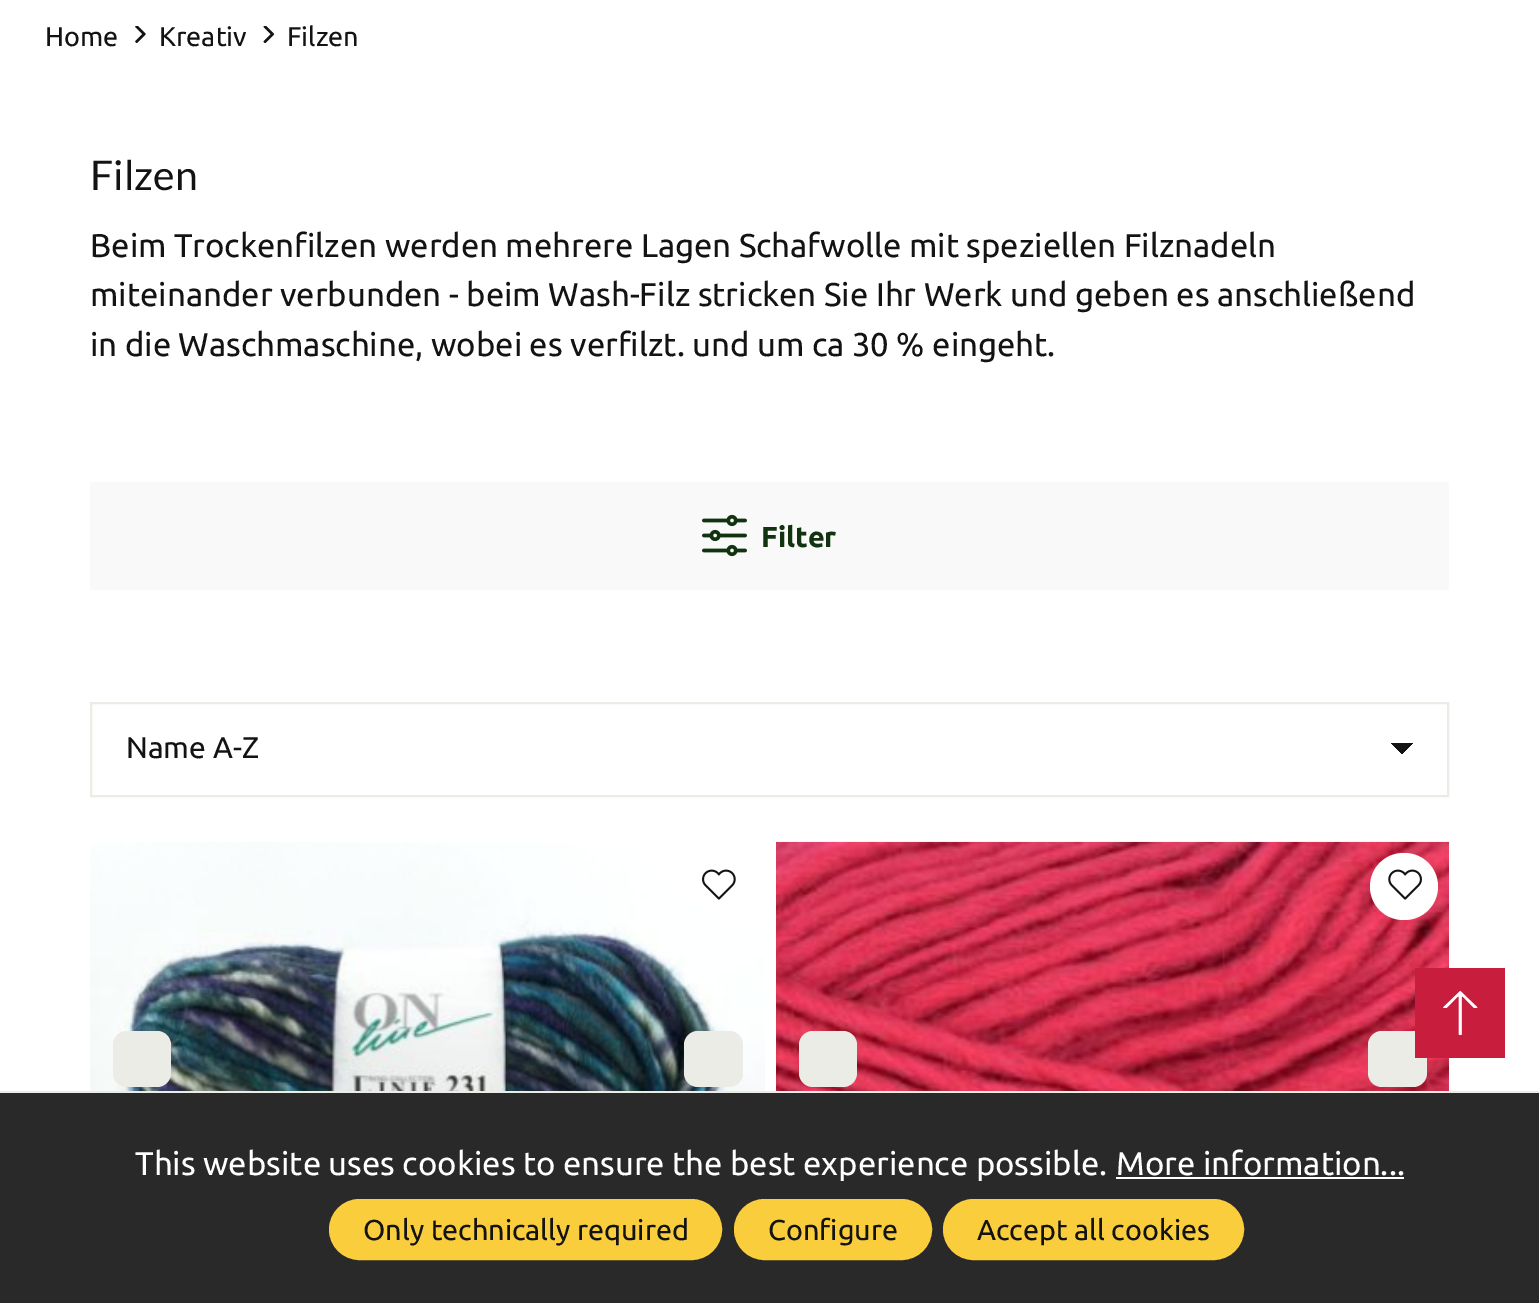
%!PS
<< /PageSize [1539 1303] >> setpagedevice
/rgb { 3 { 255 div 3 1 roll } repeat setrgbcolor } def
/font { [ exch dup neg 0 0 3 -1 roll 0 0 ] selectfont } def
/roundrect { 5 dict begin { /r /h /w /y /x } { exch def } forall
  x r add y moveto x w add y 2 copy h add r arct x w add y h add x 1 index r arct
  x y h add x y r arct x y 2 copy exch w add exch r arct closepath end } def
/picture { 5 dict begin { /h /w /y /x /name } { exch def } forall
  gsave x y translate w h scale
  w h 8 [w 0 0 h 0 0] name (r) file false 3 colorimage grestore end } def
0 1303 translate 1 -1 scale
4 setmiterlimit
255 255 255 rgb
0 0 1539 1303 rectfill
(img/1.rgb) 135 26 11 17 picture
(img/2.rgb) 263 26 12 17 picture
249 249 249 rgb
90 482 1359 108 rectfill
(img/3.rgb) 702 514 45 43 picture
gsave 1402 743 moveto 1413 743 lineto 1413 754 lineto 1402 754 lineto closepath clip newpath
<< /ShadingType 2 /ColorSpace /DeviceRGB /Coords [1402 743 1413 755] /Extend [true true] /Function << /FunctionType 3 /Domain [0 1] /Functions [<< /FunctionType 2 /Domain [0 1] /C0 [0.075 0.075 0.075] /C1 [0.075 0.075 0.075] /N 1 >> << /FunctionType 2 /Domain [0 1] /C0 [1 1 1] /C1 [1 1 1] /N 1 >>] /Bounds [0.5] /Encode [0 1 0 1] >> >> shfill grestore
gsave 1391 743 moveto 1402 743 lineto 1402 754 lineto 1391 754 lineto closepath clip newpath
<< /ShadingType 2 /ColorSpace /DeviceRGB /Coords [1391 755 1402 743] /Extend [true true] /Function << /FunctionType 3 /Domain [0 1] /Functions [<< /FunctionType 2 /Domain [0 1] /C0 [1 1 1] /C1 [1 1 1] /N 1 >> << /FunctionType 2 /Domain [0 1] /C0 [0.075 0.075 0.075] /C1 [0.075 0.075 0.075] /N 1 >>] /Bounds [0.5] /Encode [0 1 0 1] >> >> shfill grestore
236 236 231 rgb
2 setlinewidth
91 703 1357 93 rectstroke
(img/4.rgb) 90 842 675 249 picture
(img/5.rgb) 90 899 674 192 picture
113 1031 58 56 14 roundrect fill
684 1031 59 56 14 roundrect fill
(img/6.rgb) 702 869 34 31 picture
(img/7.rgb) 776 841 673 250 picture
(img/8.rgb) 776 842 673 249 picture
799 1031 58 56 14 roundrect fill
1368 1031 59 56 14 roundrect fill
255 255 255 rgb
1370 853 68 67 33.5 roundrect fill
(img/9.rgb) 1388 869 34 31 picture
201 29 62 rgb
1415 968 90 90 rectfill
(img/10.rgb) 1443 990 35 45 picture
[
  [0 1093 1539 210 41 41 41]
  [0 1091 1539 2 236 236 231]
  [1116 1177 288 2 255 255 255]
] { aload pop rgb rectfill } forall
249 205 59 rgb
330 1200 391 59 29.5 roundrect gsave fill grestore
stroke
735 1200 196 59 29.5 roundrect gsave fill grestore
stroke
944 1200 299 59 29.5 roundrect gsave fill grestore
stroke
/Ubuntu-Regular 27 font
19 19 19 rgb
[
  [(Home) 45 46]
  [(Kreativ) 159 46]
  [(Filzen) 287 46]
] { aload pop moveto show } forall
/Lato-Regular 41 font
90 190 moveto (Filzen) show
/Ubuntu-Regular 32.95 font
90 257 moveto -0.25 0 32 (Beim Trockenfilzen werden mehrere Lagen Schafwolle mit speziellen Filznadeln) widthshow
90 306 moveto -0.1 0 32 (miteinander verbunden - beim Wash-Filz stricken Sie Ihr Werk und geben es anschließend) widthshow
90 356 moveto -0.1 0 32 (in die Waschmaschine, wobei es verfilzt. und um ca 30 % eingeht.) widthshow
/Ubuntu-Bold 28.75 font
17 51 17 rgb
761 547 moveto (Filter) show
/Ubuntu-Regular 30 font
19 19 19 rgb
126 758 moveto (Name A-Z) show
/Ubuntu-Regular 32.95 font
255 255 255 rgb
135 1175 moveto -0.25 0 32 (This website uses cookies to ensure the best experience possible.) widthshow
1116 1175 moveto (More information...) show
/Ubuntu-Regular 28.75 font
19 19 19 rgb
[
  [(Only technically required) 363 1240]
  [(Configure) 768 1240]
  [(Accept all cookies) 977 1240]
] { aload pop moveto show } forall
showpage
